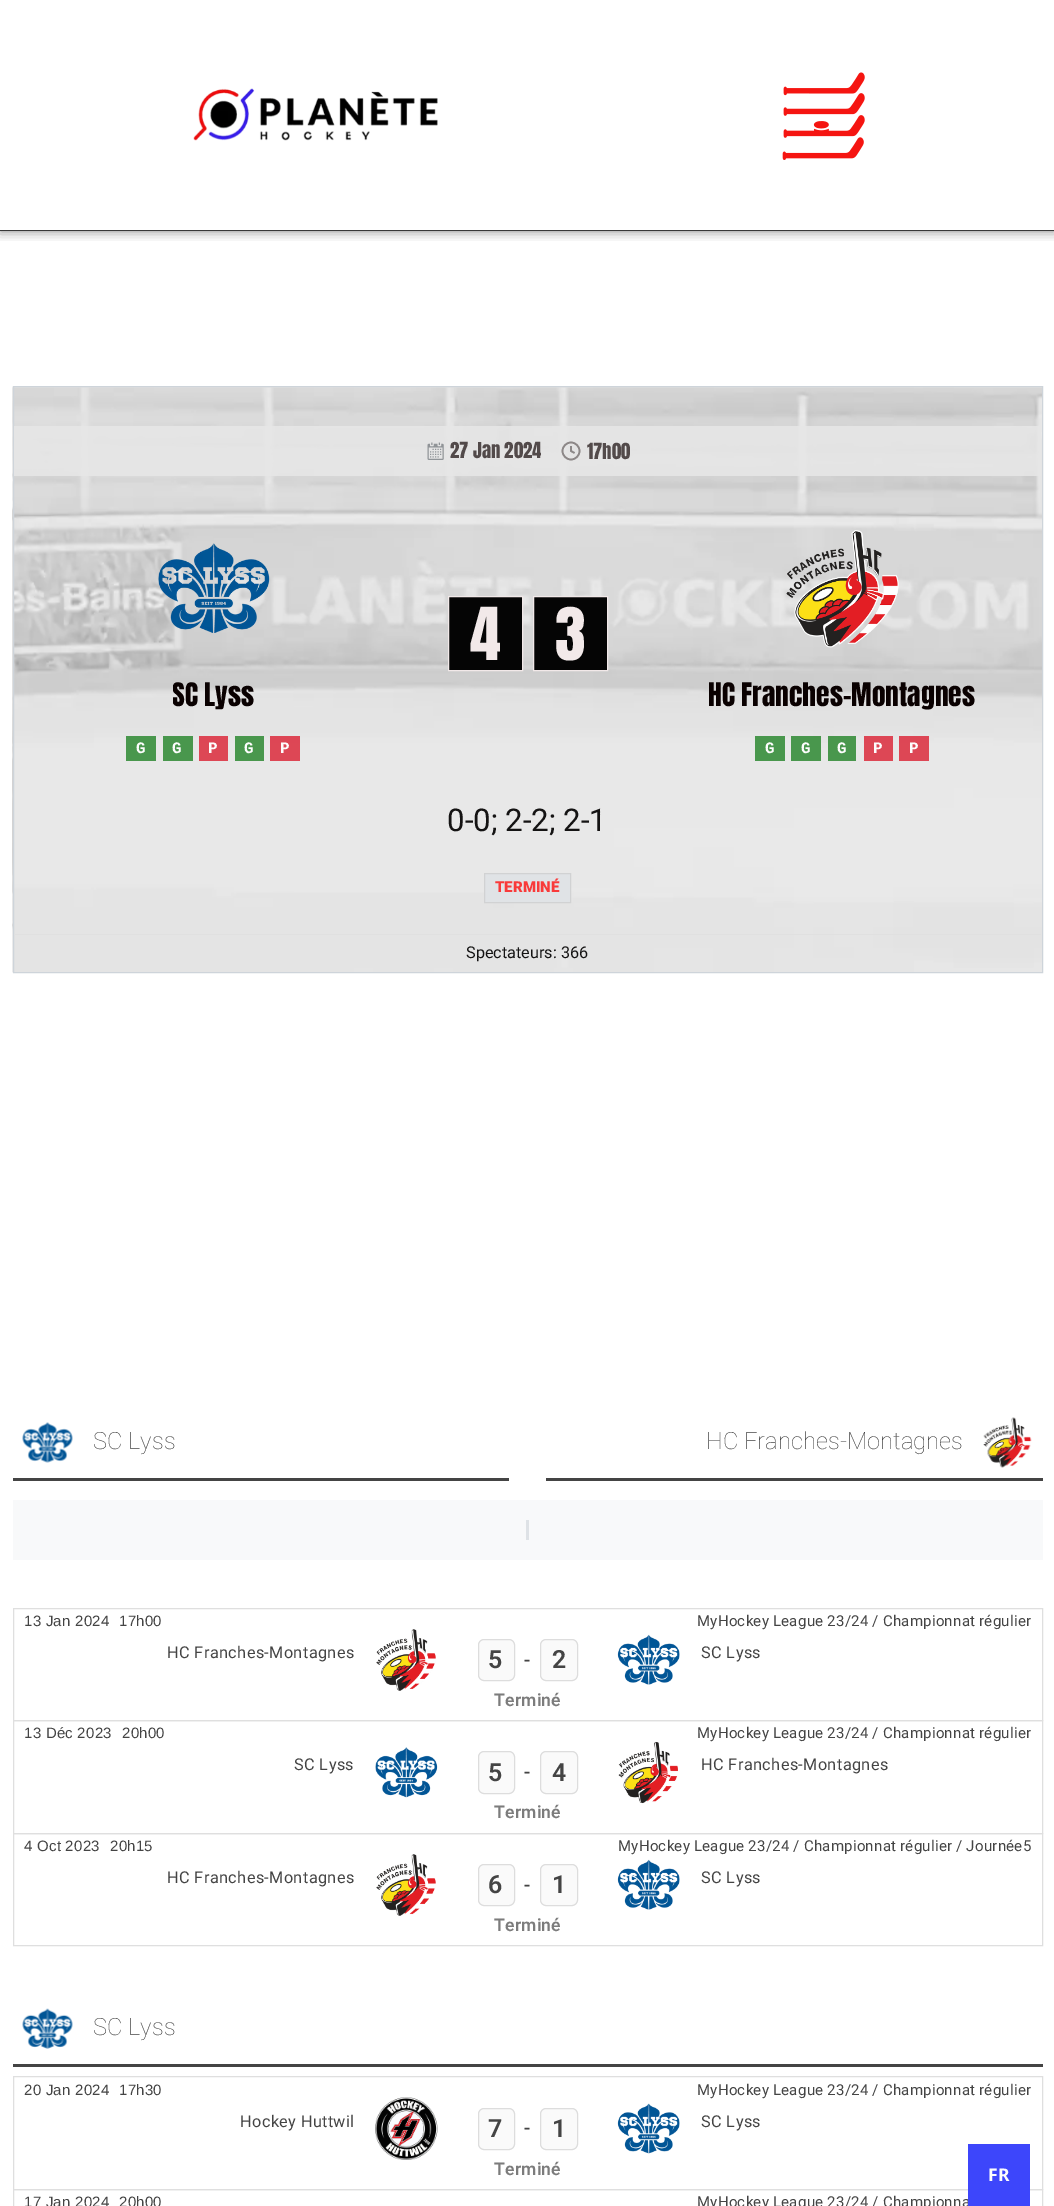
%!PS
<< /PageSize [1054 2206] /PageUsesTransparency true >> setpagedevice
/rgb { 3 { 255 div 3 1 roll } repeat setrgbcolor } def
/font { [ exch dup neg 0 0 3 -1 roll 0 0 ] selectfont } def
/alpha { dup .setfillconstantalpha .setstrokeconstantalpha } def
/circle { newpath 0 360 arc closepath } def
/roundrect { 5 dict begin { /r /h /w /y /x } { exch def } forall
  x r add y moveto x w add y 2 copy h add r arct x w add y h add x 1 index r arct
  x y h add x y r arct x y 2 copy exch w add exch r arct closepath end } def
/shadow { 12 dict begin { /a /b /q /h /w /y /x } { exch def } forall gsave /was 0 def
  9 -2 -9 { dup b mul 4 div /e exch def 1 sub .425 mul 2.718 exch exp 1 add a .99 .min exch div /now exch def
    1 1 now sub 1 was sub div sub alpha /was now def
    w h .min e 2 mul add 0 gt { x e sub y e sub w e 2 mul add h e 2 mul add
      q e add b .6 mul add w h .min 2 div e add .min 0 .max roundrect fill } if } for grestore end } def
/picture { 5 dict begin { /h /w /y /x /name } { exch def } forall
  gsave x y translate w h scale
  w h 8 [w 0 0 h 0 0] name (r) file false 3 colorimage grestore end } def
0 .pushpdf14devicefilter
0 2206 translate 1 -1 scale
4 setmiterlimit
255 255 255 rgb
0 0 1054 2206 rectfill
gsave
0 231 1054 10 rectclip
0 0 0 rgb
0 0 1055 231 0 6 0.5 shadow
grestore
56 56 56 rgb
0 230 1054 1 rectfill
(img/1.rgb) 193 88 245 53 picture
(img/2.rgb) 782 72 83 88 picture
(img/3.rgb) 12 386 1030 587 picture
206 212 218 rgb
13.5 386.5 1029 586 rectstroke
0.9 alpha
230 230 230 rgb
14 426 1027 50 rectfill
1 alpha
(img/4.rgb) 427 442 17 18 picture
0.54 alpha
66 57 57 rgb
1.7 setlinewidth
571 451 8.5 circle stroke
1 alpha
140 136 136 rgb
571 446 moveto 571 451 lineto 574.5 453 lineto stroke
5 5 5 rgb
448.5 596.5 moveto 522.5 596.5 lineto 522.5 670.5 lineto 448.5 670.5 lineto closepath gsave fill grestore
242 233 233 rgb
1 setlinewidth
stroke
5 5 5 rgb
533.5 596.5 moveto 607.5 596.5 lineto 607.5 670.5 lineto 533.5 670.5 lineto closepath gsave fill grestore
242 233 233 rgb
stroke
(img/5.rgb) 158 543 112 90 picture
0.9 alpha
[
  [126 736 30 25 56 142 60]
  [163 736 30 25 56 142 60]
  [199 736 29 25 220 53 69]
  [235 736 29 25 56 142 60]
  [270 736 30 25 220 53 69]
] { aload pop rgb rectfill } forall
1 alpha
(img/6.rgb) 786 530 113 118 picture
0.9 alpha
[
  [755 736 30 25 56 142 60]
  [791 736 30 25 56 142 60]
  [828 736 28 25 56 142 60]
  [864 736 29 25 220 53 69]
  [899 736 30 25 220 53 69]
] { aload pop rgb rectfill } forall
0.75 alpha
[
  [534 891 19 1 230 230 230]
] { aload pop rgb rectfill } forall
1 alpha
224 227 230 rgb
484.5 873.5 moveto 570.5 873.5 lineto 570.5 902.5 lineto 484.5 902.5 lineto closepath gsave fill grestore
209 210 211 rgb
stroke
224 224 224 rgb
14 934 1027 1 rectfill
68 68 68 rgb
13 1478 496 3 rectfill
(img/7.rgb) 22 1422 51 41 picture
546 1478 497 3 rectfill
(img/8.rgb) 983 1417 49 51 picture
248 249 250 rgb
13 1500 1030 60 rectfill
222 226 230 rgb
526 1520 3 20 rectfill
223 223 223 rgb
13.5 1608.5 1029 112 rectstroke
(img/9.rgb) 376 1629 60 62 picture
250 250 250 rgb
478.5 1639.5 36 41 5.5 roundrect gsave fill grestore
221 221 221 rgb
stroke
250 250 250 rgb
540.5 1639.5 37 41 5.5 roundrect gsave fill grestore
221 221 221 rgb
stroke
(img/10.rgb) 617 1634 63 51 picture
223 223 223 rgb
13.5 1720.5 1029 113 rectstroke
(img/11.rgb) 375 1747 63 51 picture
250 250 250 rgb
478.5 1751.5 36 42 5.5 roundrect gsave fill grestore
221 221 221 rgb
stroke
250 250 250 rgb
540.5 1751.5 37 42 5.5 roundrect gsave fill grestore
221 221 221 rgb
stroke
(img/12.rgb) 618 1741 60 63 picture
223 223 223 rgb
13.5 1833.5 1029 112 rectstroke
(img/9.rgb) 376 1854 60 62 picture
250 250 250 rgb
478.5 1864.5 36 41 5.5 roundrect gsave fill grestore
221 221 221 rgb
stroke
250 250 250 rgb
540.5 1864.5 37 41 5.5 roundrect gsave fill grestore
221 221 221 rgb
stroke
(img/13.rgb) 617 1859 63 51 picture
68 68 68 rgb
13 2064 1030 3 rectfill
(img/14.rgb) 22 2008 51 41 picture
223 223 223 rgb
13.5 2076.5 1029 113 rectstroke
(img/15.rgb) 375 2097 63 63 picture
250 250 250 rgb
478.5 2108.5 36 41 5.5 roundrect gsave fill grestore
221 221 221 rgb
stroke
250 250 250 rgb
540.5 2108.5 37 41 5.5 roundrect gsave fill grestore
221 221 221 rgb
stroke
(img/16.rgb) 617 2103 63 51 picture
223 223 223 rgb
13.5 2189.5 1029 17 rectstroke
/Anton-Regular 18.75 font
82 74 74 rgb
450 458 moveto (27 Jan 2024) show
587 459 moveto (17h00) show
/Anton-Regular 62 font
242 233 233 rgb
470 660 moveto (4) show
555 660 moveto (3) show
gsave
173 676 81 43 rectclip
/Anton-Regular 27.5 font
10 1 1 rgb
172 706 moveto (SC Lyss) show
grestore
/LiberationMono-Bold 16 font
253 253 253 rgb
[
  [(G) 136 753]
  [(G) 172 753]
  [(P) 208 753]
  [(G) 244 753]
  [(P) 280 753]
] { aload pop moveto show } forall
/Anton-Regular 27.5 font
10 1 1 rgb
708 706 moveto (HC Franches-Montagnes) show
/LiberationMono-Bold 16 font
253 253 253 rgb
[
  [(G) 765 753]
  [(G) 801 753]
  [(G) 837 753]
  [(P) 873 753]
  [(P) 909 753]
] { aload pop moveto show } forall
/Roboto-Regular 31.25 font
20 19 19 rgb
447 831 moveto (0-0; 2-2; 2-1) show
/Roboto-Black 15 font
249 58 58 rgb
495 892 moveto (TERMINÉ) show
/Roboto-Regular 16.25 font
20 19 19 rgb
466 958 moveto (Spectateurs: 366) show
/Roboto-Thin 23.75 font
68 68 68 rgb
93 1449 moveto (SC Lyss) show
706 1449 moveto (HC Franches-Montagnes) show
/LiberationSans-Regular 15 font
24 1626 moveto 0.25 0 (13 Jan 2024) ashow
119 1626 moveto 0.25 0 (17h00) ashow
/Roboto-Regular 15 font
697 1626 moveto 0.25 0 (MyHockey League 23/24 / Championnat régulier) ashow
/Roboto-Regular 16.25 font
167 1658 moveto 0.4 0 (HC Franches-Montagnes) ashow
/Roboto-SemiBold 25 font
488 1668 moveto 0.25 0 (5) ashow
/Roboto-Regular 21 font
524 1667 moveto 0.25 0 (-) ashow
/Roboto-SemiBold 25 font
552 1668 moveto 0.25 0 (2) ashow
/Roboto-Regular 16.25 font
701 1658 moveto 0.4 0 (SC Lyss) ashow
/Roboto-SemiBold 17.5 font
124 124 124 rgb
494 1706 moveto 0.25 0 (Terminé) ashow
/LiberationSans-Regular 15 font
68 68 68 rgb
24 1738 moveto 0.25 0 (13 Déc 2023) ashow
122 1738 moveto 0.25 0 (20h00) ashow
/Roboto-Regular 15 font
697 1738 moveto 0.25 0 (MyHockey League 23/24 / Championnat régulier) ashow
/Roboto-Regular 16.25 font
294 1770 moveto 0.4 0 (SC Lyss) ashow
/Roboto-SemiBold 25 font
488 1781 moveto 0.25 0 (5) ashow
/Roboto-Regular 21 font
524 1779 moveto 0.25 0 (-) ashow
/Roboto-SemiBold 25 font
552 1781 moveto 0.25 0 (4) ashow
/Roboto-Regular 16.25 font
701 1770 moveto 0.4 0 (HC Franches-Montagnes) ashow
/Roboto-SemiBold 17.5 font
124 124 124 rgb
494 1818 moveto 0.25 0 (Terminé) ashow
/LiberationSans-Regular 15 font
68 68 68 rgb
24 1851 moveto 0.25 0 (4 Oct 2023) ashow
110 1851 moveto 0.25 0 (20h15) ashow
/Roboto-Regular 15 font
618 1851 moveto 0.25 0 (MyHockey League 23/24 / Championnat régulier / Journée5) ashow
/Roboto-Regular 16.25 font
167 1883 moveto 0.4 0 (HC Franches-Montagnes) ashow
/Roboto-SemiBold 25 font
488 1893 moveto 0.25 0 (6) ashow
/Roboto-Regular 21 font
524 1892 moveto 0.25 0 (-) ashow
/Roboto-SemiBold 25 font
552 1893 moveto 0.25 0 (1) ashow
/Roboto-Regular 16.25 font
701 1883 moveto 0.4 0 (SC Lyss) ashow
/Roboto-SemiBold 17.5 font
124 124 124 rgb
494 1931 moveto 0.25 0 (Terminé) ashow
/Roboto-Thin 23.75 font
68 68 68 rgb
93 2035 moveto (SC Lyss) show
/LiberationSans-Regular 15 font
24 2095 moveto 0.25 0 (20 Jan 2024) ashow
119 2095 moveto 0.25 0 (17h30) ashow
/Roboto-Regular 15 font
697 2095 moveto 0.25 0 (MyHockey League 23/24 / Championnat régulier) ashow
/Roboto-Regular 16.25 font
240 2127 moveto 0.4 0 (Hockey Huttwil) ashow
/Roboto-SemiBold 25 font
488 2137 moveto 0.25 0 (7) ashow
/Roboto-Regular 21 font
524 2135 moveto 0.25 0 (-) ashow
/Roboto-SemiBold 25 font
552 2137 moveto 0.25 0 (1) ashow
/Roboto-Regular 16.25 font
701 2127 moveto 0.4 0 (SC Lyss) ashow
/Roboto-SemiBold 17.5 font
124 124 124 rgb
494 2175 moveto 0.25 0 (Terminé) ashow
/LiberationSans-Regular 15 font
68 68 68 rgb
24 2207 moveto 0.25 0 (17 Jan 2024) ashow
119 2207 moveto 0.25 0 (20h00) ashow
/Roboto-Regular 15 font
697 2207 moveto 0.25 0 (MyHockey League 23/24 / Championna) ashow
61 70 251 rgb
968 2144 62 62 rectfill
/NotoSans-Bold 17.5 font
253 253 253 rgb
988 2181 moveto (FR) show
.poppdf14devicefilter showpage
